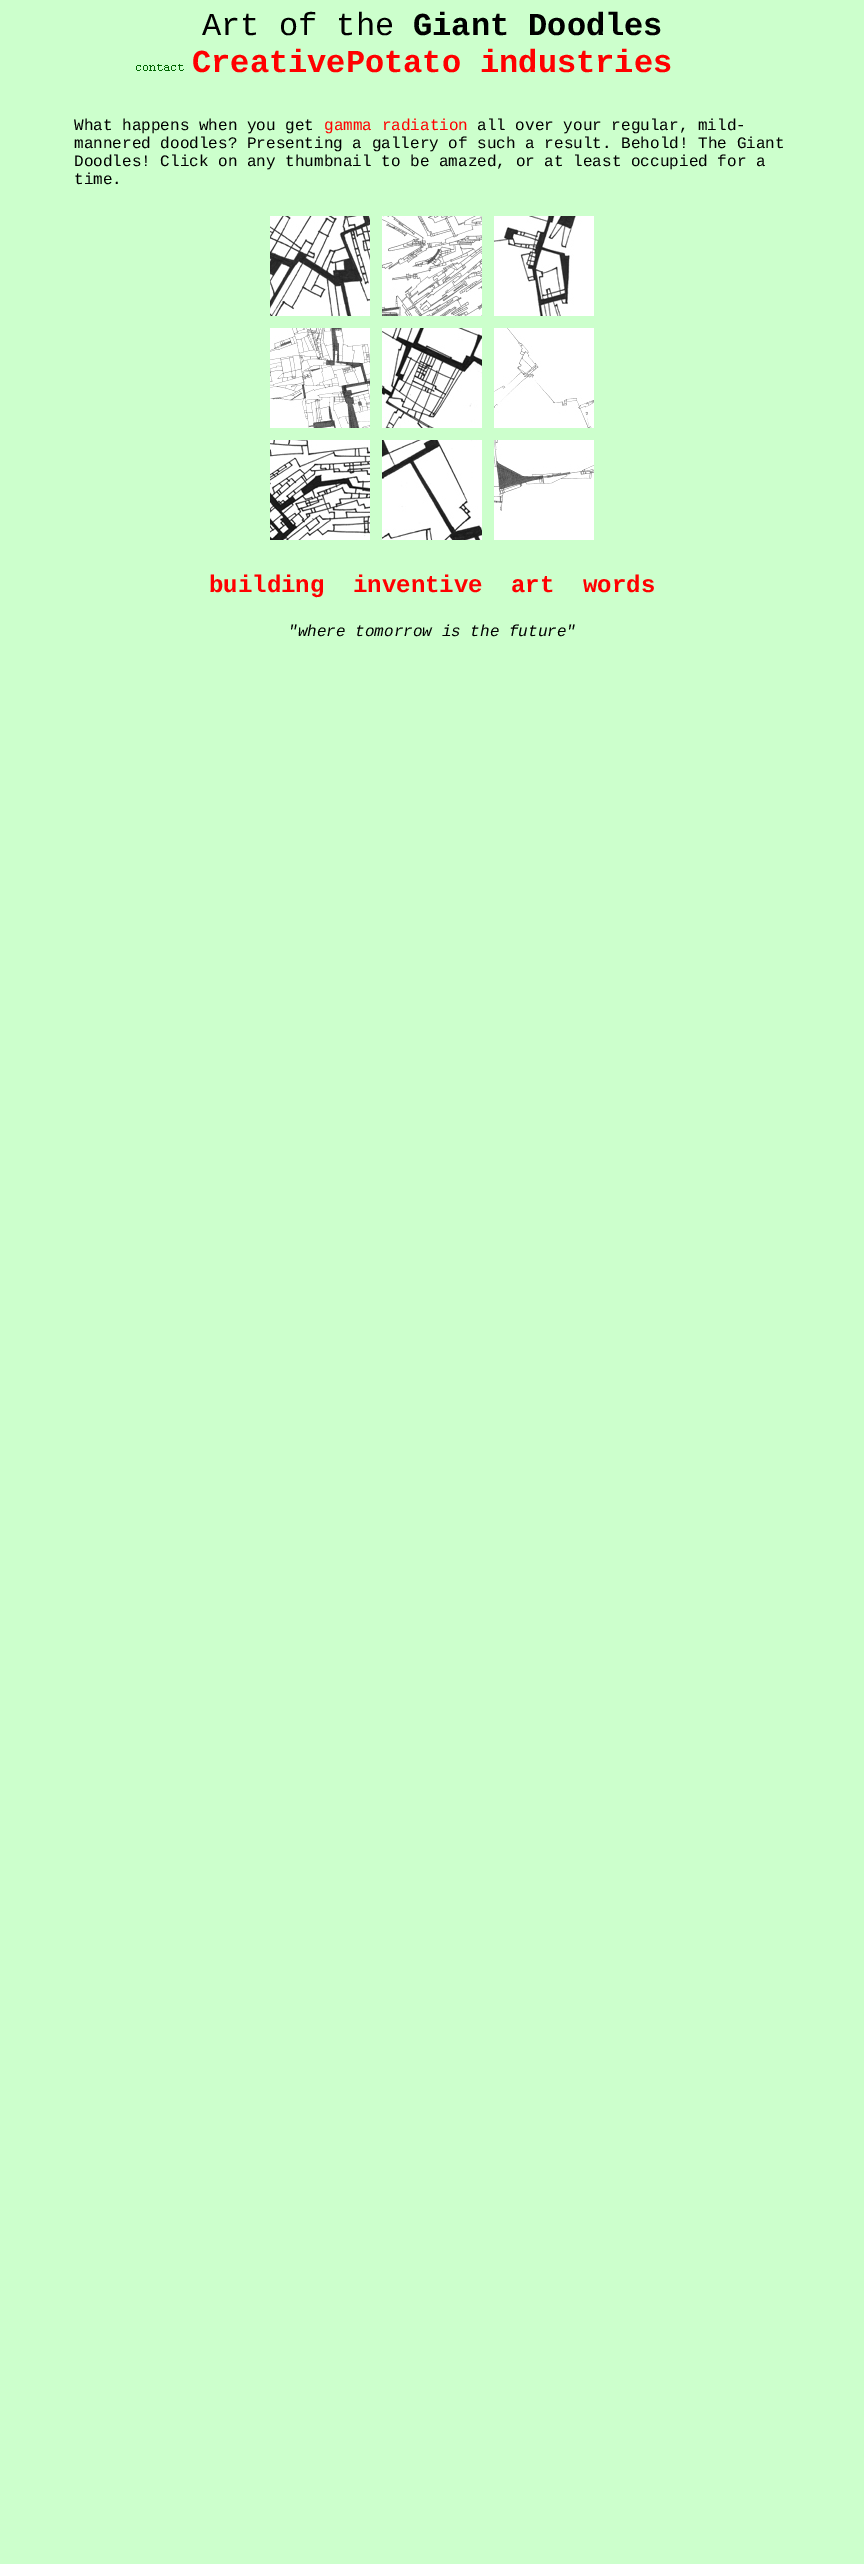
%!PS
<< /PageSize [864 2564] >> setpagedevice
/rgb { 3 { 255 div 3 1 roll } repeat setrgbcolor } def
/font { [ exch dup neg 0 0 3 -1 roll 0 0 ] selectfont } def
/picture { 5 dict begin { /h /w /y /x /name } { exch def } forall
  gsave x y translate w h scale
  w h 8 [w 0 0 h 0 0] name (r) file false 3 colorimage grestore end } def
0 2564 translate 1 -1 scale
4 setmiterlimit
204 255 204 rgb
0 0 864 2564 rectfill
(img/1.rgb) 136 63 56 9 picture
(img/2.rgb) 270 216 100 100 picture
(img/3.rgb) 382 216 100 100 picture
(img/4.rgb) 494 216 100 100 picture
(img/5.rgb) 270 328 100 100 picture
(img/6.rgb) 382 328 100 100 picture
(img/7.rgb) 494 328 100 100 picture
(img/8.rgb) 270 440 100 100 picture
(img/9.rgb) 382 440 100 100 picture
(img/10.rgb) 494 440 100 100 picture
/LiberationMono-Regular 32 font
0 0 0 rgb
202 35 moveto (Art of the) show
/LiberationMono-Bold 32 font
413 35 moveto (Giant Doodles) show
255 0 0 rgb
192 72 moveto (CreativePotato industries) show
/LiberationMono-Regular 16 font
0 0 0 rgb
74 130 moveto (What happens when you get) show
255 0 0 rgb
324 130 moveto (gamma radiation) show
0 0 0 rgb
[
  [(all over your regular, mild-) 477 130]
  [(mannered doodles? Presenting a gallery of such a result. Behold! The Giant) 74 148]
  [(Doodles! Click on any thumbnail to be amazed, or at least occupied for a) 74 166]
  [(time.) 74 184]
] { aload pop moveto show } forall
/LiberationMono-Bold 24 font
255 0 0 rgb
[
  [(building) 209 592]
  [(inventive) 353 592]
  [(art) 511 592]
  [(words) 583 592]
] { aload pop moveto show } forall
/LiberationMono-Italic 16 font
0 0 0 rgb
288 636 moveto ("where tomorrow is the future") show
showpage
